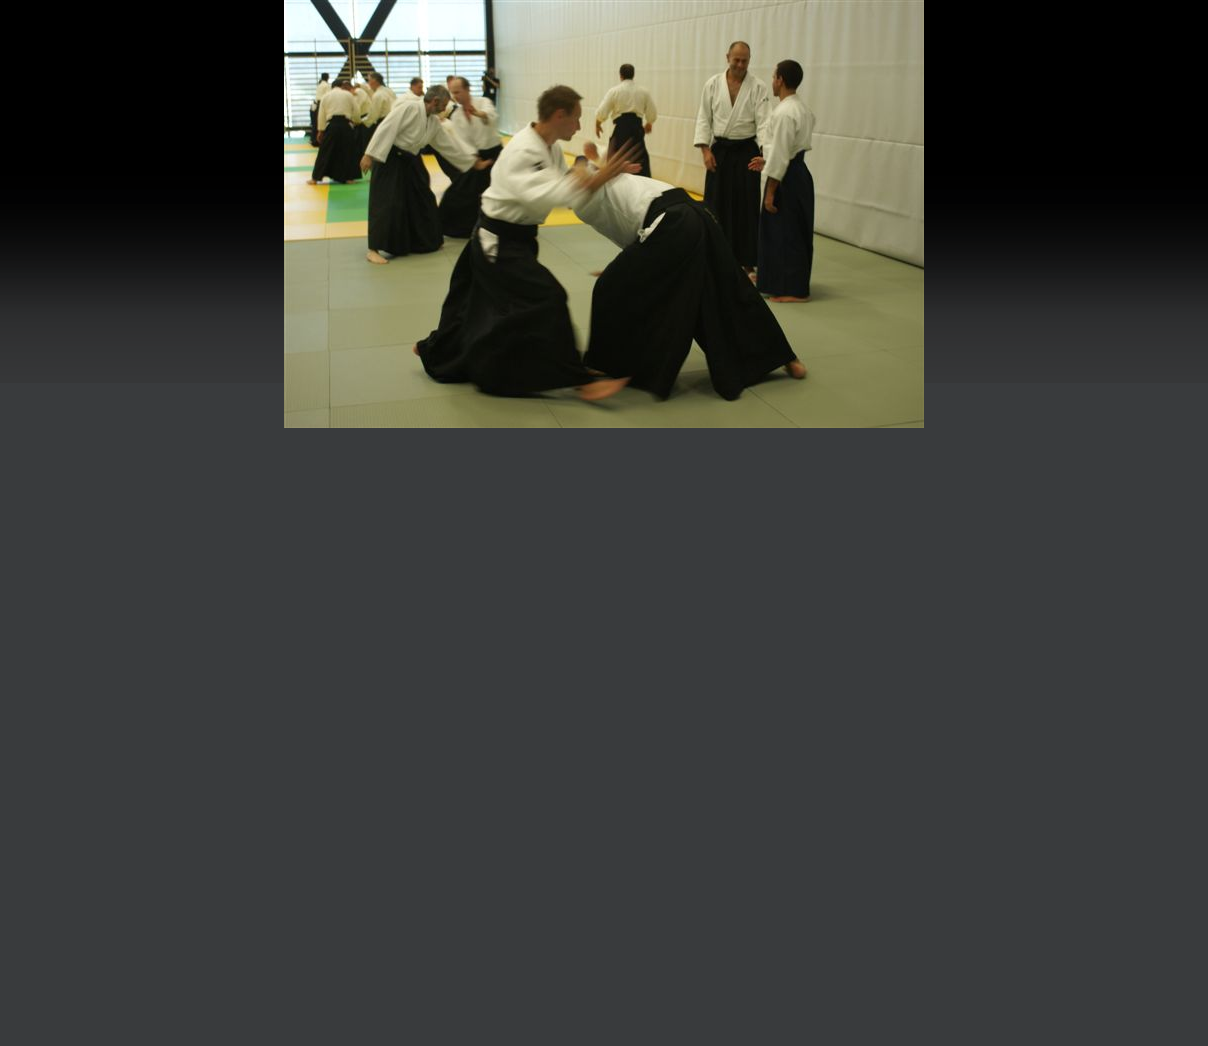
%!PS
<< /PageSize [1208 1046] >> setpagedevice
/rgb { 3 { 255 div 3 1 roll } repeat setrgbcolor } def
/picture { 5 dict begin { /h /w /y /x /name } { exch def } forall
  gsave x y translate w h scale
  w h 8 [w 0 0 h 0 0] name (r) file false 3 colorimage grestore end } def
0 1046 translate 1 -1 scale
4 setmiterlimit
57 59 61 rgb
0 0 1208 1046 rectfill
(img/1.rgb) 0 0 1208 383 picture
(img/2.rgb) 284 0 640 428 picture
showpage
